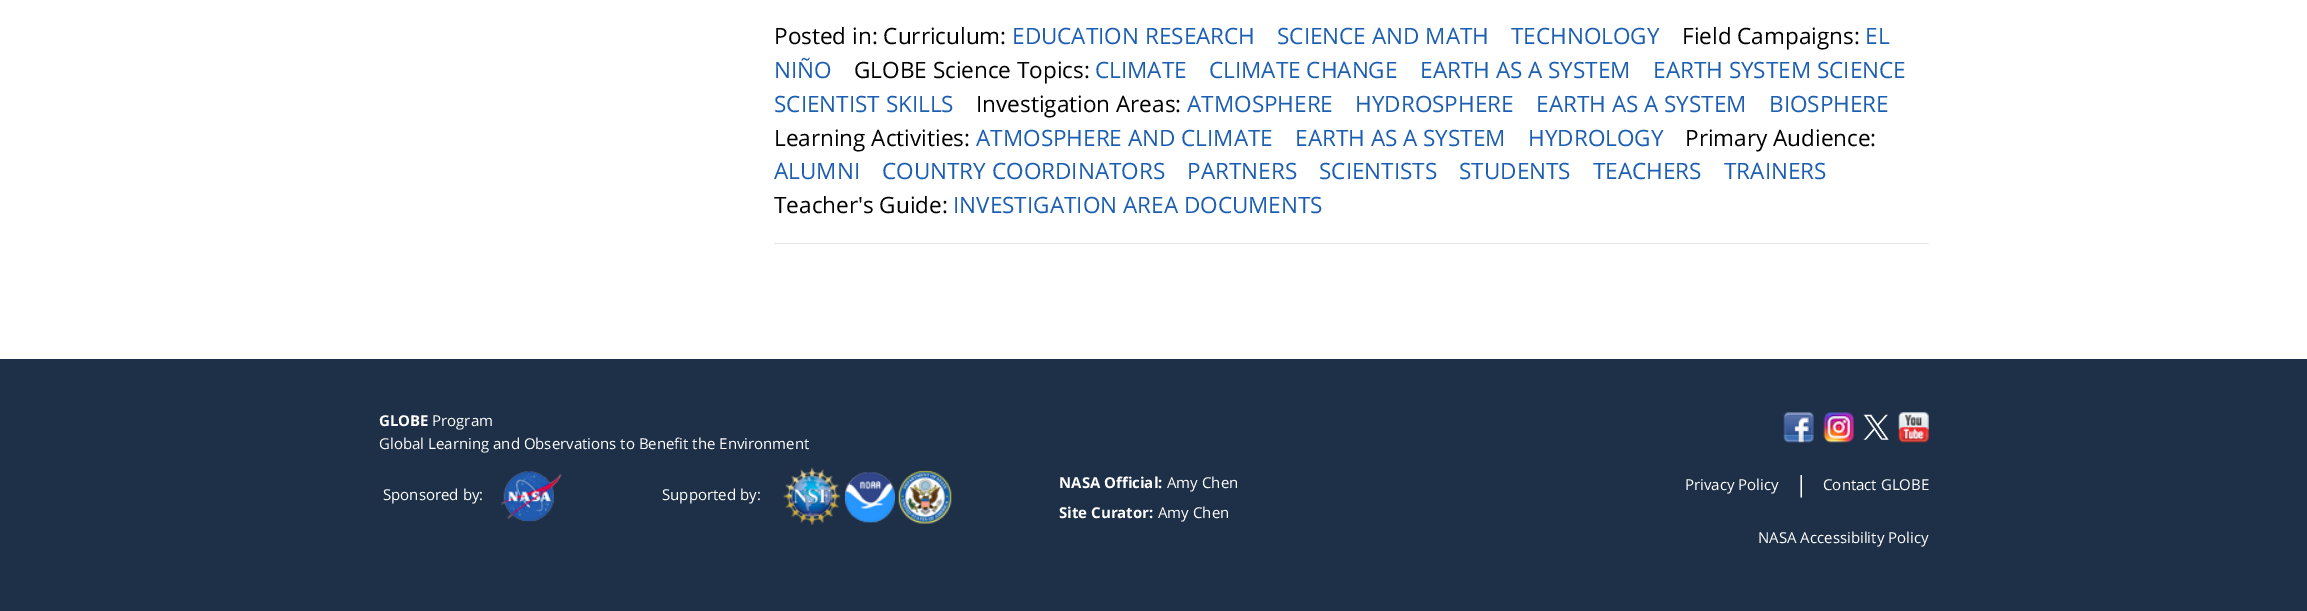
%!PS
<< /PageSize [2307 611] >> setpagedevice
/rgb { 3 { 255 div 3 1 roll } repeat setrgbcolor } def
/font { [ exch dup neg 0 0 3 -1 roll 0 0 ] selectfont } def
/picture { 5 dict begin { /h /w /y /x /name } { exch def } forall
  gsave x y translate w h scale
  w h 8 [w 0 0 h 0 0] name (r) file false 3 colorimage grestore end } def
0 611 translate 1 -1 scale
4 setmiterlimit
255 255 255 rgb
0 0 2307 611 rectfill
230 230 230 rgb
774 243 1155 1 rectfill
30 48 72 rgb
0 359 2307 252 rectfill
(img/1.rgb) 501 471 61 51 picture
(img/2.rgb) 783 467 58 58 picture
(img/3.rgb) 845 472 50 51 picture
(img/4.rgb) 898 470 54 54 picture
(img/5.rgb) 1783 412 31 31 picture
(img/6.rgb) 1823 412 31 31 picture
(img/7.rgb) 1863 414 26 26 picture
(img/8.rgb) 1898 412 31 31 picture
/OpenSans-Regular 22.5 font
0 0 0 rgb
774 44 moveto (Posted in: Curriculum:) show
27 94 178 rgb
[
  [(EDUCATION RESEARCH) 1012 44]
  [(SCIENCE AND MATH) 1277 44]
  [(TECHNOLOGY) 1511 44]
] { aload pop moveto show } forall
0 0 0 rgb
1682 44 moveto (Field Campaigns:) show
27 94 178 rgb
1865 44 moveto (EL) show
774 78 moveto (NIÑO) show
0 0 0 rgb
854 78 moveto (GLOBE Science Topics:) show
27 94 178 rgb
[
  [(CLIMATE) 1095 78]
  [(CLIMATE CHANGE) 1209 78]
  [(EARTH AS A SYSTEM) 1420 78]
  [(EARTH SYSTEM SCIENCE) 1653 78]
  [(SCIENTIST SKILLS) 774 112]
] { aload pop moveto show } forall
0 0 0 rgb
976 112 moveto (Investigation Areas:) show
27 94 178 rgb
[
  [(ATMOSPHERE) 1187 112]
  [(HYDROSPHERE) 1355 112]
  [(EARTH AS A SYSTEM) 1536 112]
  [(BIOSPHERE) 1769 112]
] { aload pop moveto show } forall
0 0 0 rgb
774 146 moveto (Learning Activities:) show
27 94 178 rgb
[
  [(ATMOSPHERE AND CLIMATE) 976 146]
  [(EARTH AS A SYSTEM) 1295 146]
  [(HYDROLOGY) 1528 146]
] { aload pop moveto show } forall
0 0 0 rgb
1685 146 moveto (Primary Audience:) show
27 94 178 rgb
[
  [(ALUMNI) 774 179]
  [(COUNTRY COORDINATORS) 882 179]
  [(PARTNERS) 1187 179]
  [(SCIENTISTS) 1319 179]
  [(STUDENTS) 1459 179]
  [(TEACHERS) 1593 179]
  [(TRAINERS) 1724 179]
] { aload pop moveto show } forall
0 0 0 rgb
774 213 moveto (Teacher's Guide:) show
27 94 178 rgb
953 213 moveto (INVESTIGATION AREA DOCUMENTS) show
/OpenSans-Bold 15 font
255 255 255 rgb
379 426 moveto (GLOBE) show
/OpenSans-Regular 15 font
[
  [(Program) 432 426]
  [(Global Learning and Observations to Benefit the Environment) 379 449]
  [(Sponsored by:) 383 500]
  [(Supported by:) 662 500]
] { aload pop moveto show } forall
/OpenSans-Bold 15 font
1059 488 moveto (NASA Official:) show
/OpenSans-Regular 15 font
1167 488 moveto (Amy Chen) show
/OpenSans-Bold 15 font
1059 518 moveto (Site Curator:) show
/OpenSans-Regular 15 font
1158 518 moveto (Amy Chen) show
1685 490 moveto (Privacy Policy) show
/OpenSans-Regular 22.5 font
1795 492 moveto (|) show
/OpenSans-Regular 15 font
1823 490 moveto (Contact GLOBE) show
1758 543 moveto (NASA Accessibility Policy) show
showpage
